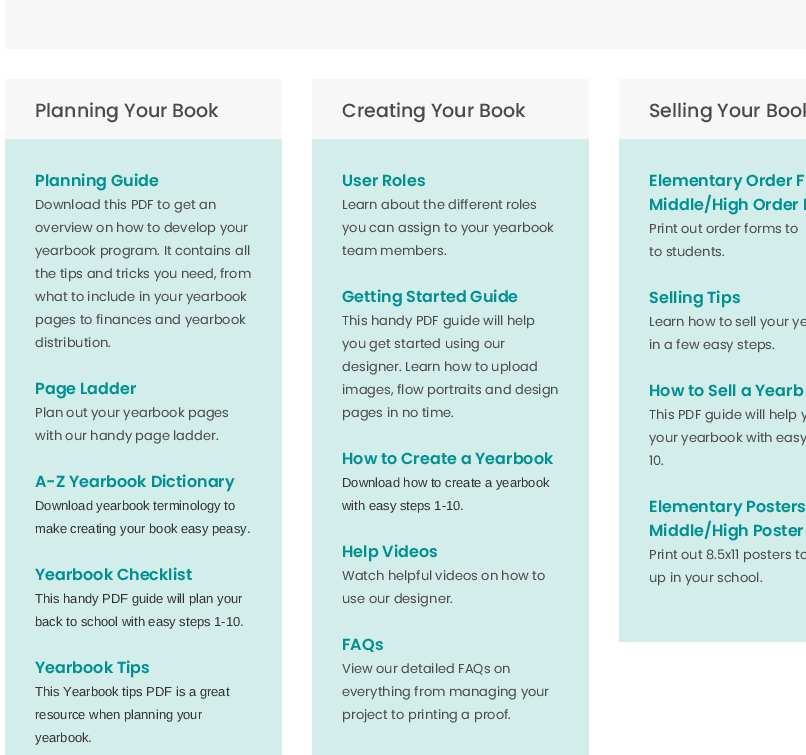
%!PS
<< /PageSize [806 755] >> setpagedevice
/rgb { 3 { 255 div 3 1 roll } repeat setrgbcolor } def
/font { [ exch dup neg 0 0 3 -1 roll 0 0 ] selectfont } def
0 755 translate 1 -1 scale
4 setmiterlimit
255 255 255 rgb
0 0 806 755 rectfill
[
  [5 0 801 49 247 247 247]
  [5 79 277 60 247 247 247]
  [5 139 277 616 210 237 234]
  [312 79 277 60 247 247 247]
  [312 139 277 616 210 237 234]
  [619 79 187 60 247 247 247]
  [619 139 187 503 210 237 234]
] { aload pop rgb rectfill } forall
/Poppins-Medium 19 font
74 74 74 rgb
35 117 moveto (Planning Your Book) show
/Poppins-SemiBold 16 font
0 144 146 rgb
35 186 moveto (Planning Guide) show
/Poppins-Regular 13 font
74 74 74 rgb
[
  [(Download this PDF to get an) 35 209]
  [(overview on how to develop your) 35 232]
  [(yearbook program. It contains all) 35 255]
  [(the tips and tricks you need, from) 35 278]
  [(what to include in your yearbook) 35 301]
  [(pages to finances and yearbook) 35 324]
  [(distribution.) 35 347]
] { aload pop moveto show } forall
/Poppins-SemiBold 16 font
0 144 146 rgb
35 394 moveto (Page Ladder) show
/Poppins-Regular 13 font
74 74 74 rgb
35 417 moveto (Plan out your yearbook pages) show
35 440 moveto (with our handy page ladder.) show
/Poppins-SemiBold 16 font
0 144 146 rgb
35 487 moveto (A-Z Yearbook Dictionary) show
/LiberationSans-Regular 13 font
51 51 51 rgb
35 510 moveto (Download yearbook terminology to) show
35 533 moveto (make creating your book easy peasy.) show
/Poppins-SemiBold 16 font
0 144 146 rgb
35 580 moveto (Yearbook Checklist) show
/LiberationSans-Regular 13 font
51 51 51 rgb
35 603 moveto (This handy PDF guide will plan your) show
35 626 moveto (back to school with easy steps 1-10.) show
/Poppins-SemiBold 16 font
0 144 146 rgb
35 673 moveto (Yearbook Tips) show
/LiberationSans-Regular 13 font
51 51 51 rgb
[
  [(This Yearbook tips PDF is a great) 35 696]
  [(resource when planning your) 35 719]
  [(yearbook.) 35 742]
] { aload pop moveto show } forall
/Poppins-Medium 19 font
74 74 74 rgb
342 117 moveto (Creating Your Book) show
/Poppins-SemiBold 16 font
0 144 146 rgb
342 186 moveto (User Roles) show
/Poppins-Regular 13 font
74 74 74 rgb
[
  [(Learn about the different roles) 342 209]
  [(you can assign to your yearbook) 342 232]
  [(team members.) 342 255]
] { aload pop moveto show } forall
/Poppins-SemiBold 16 font
0 144 146 rgb
342 302 moveto (Getting Started Guide) show
/Poppins-Regular 13 font
74 74 74 rgb
[
  [(This handy PDF guide will help) 342 325]
  [(you get started using our) 342 348]
  [(designer. Learn how to upload) 342 371]
  [(images, flow portraits and design) 342 394]
  [(pages in no time.) 342 417]
] { aload pop moveto show } forall
/Poppins-SemiBold 16 font
0 144 146 rgb
342 464 moveto (How to Create a Yearbook) show
/LiberationSans-Regular 13 font
51 51 51 rgb
342 487 moveto (Download how to create a yearbook) show
342 510 moveto (with easy steps 1-10.) show
/Poppins-SemiBold 16 font
0 144 146 rgb
342 557 moveto (Help Videos) show
/Poppins-Regular 13 font
74 74 74 rgb
342 580 moveto (Watch helpful videos on how to) show
342 603 moveto (use our designer.) show
/Poppins-SemiBold 16 font
0 144 146 rgb
342 650 moveto (FAQs) show
/Poppins-Regular 13 font
74 74 74 rgb
[
  [(View our detailed FAQs on) 342 673]
  [(everything from managing your) 342 696]
  [(project to printing a proof.) 342 719]
] { aload pop moveto show } forall
/Poppins-Medium 19 font
649 117 moveto (Selling Your Book) show
/Poppins-SemiBold 16 font
0 144 146 rgb
649 186 moveto (Elementary Order F) show
649 210 moveto (Middle/High Order F) show
/Poppins-Regular 13 font
74 74 74 rgb
649 233 moveto (Print out order forms to) show
649 256 moveto (to students.) show
/Poppins-SemiBold 16 font
0 144 146 rgb
649 303 moveto (Selling Tips) show
/Poppins-Regular 13 font
74 74 74 rgb
649 326 moveto (Learn how to sell your ye) show
649 349 moveto (in a few easy steps.) show
/Poppins-SemiBold 16 font
0 144 146 rgb
649 396 moveto (How to Sell a Yearb) show
/Poppins-Regular 13 font
74 74 74 rgb
[
  [(This PDF guide will help y) 649 419]
  [(your yearbook with easy) 649 442]
  [(10.) 649 465]
] { aload pop moveto show } forall
/Poppins-SemiBold 16 font
0 144 146 rgb
649 512 moveto (Elementary Posters) show
649 536 moveto (Middle/High Poster) show
/Poppins-Regular 13 font
74 74 74 rgb
649 559 moveto (Print out 8.5x11 posters to) show
649 582 moveto (up in your school.) show
showpage
